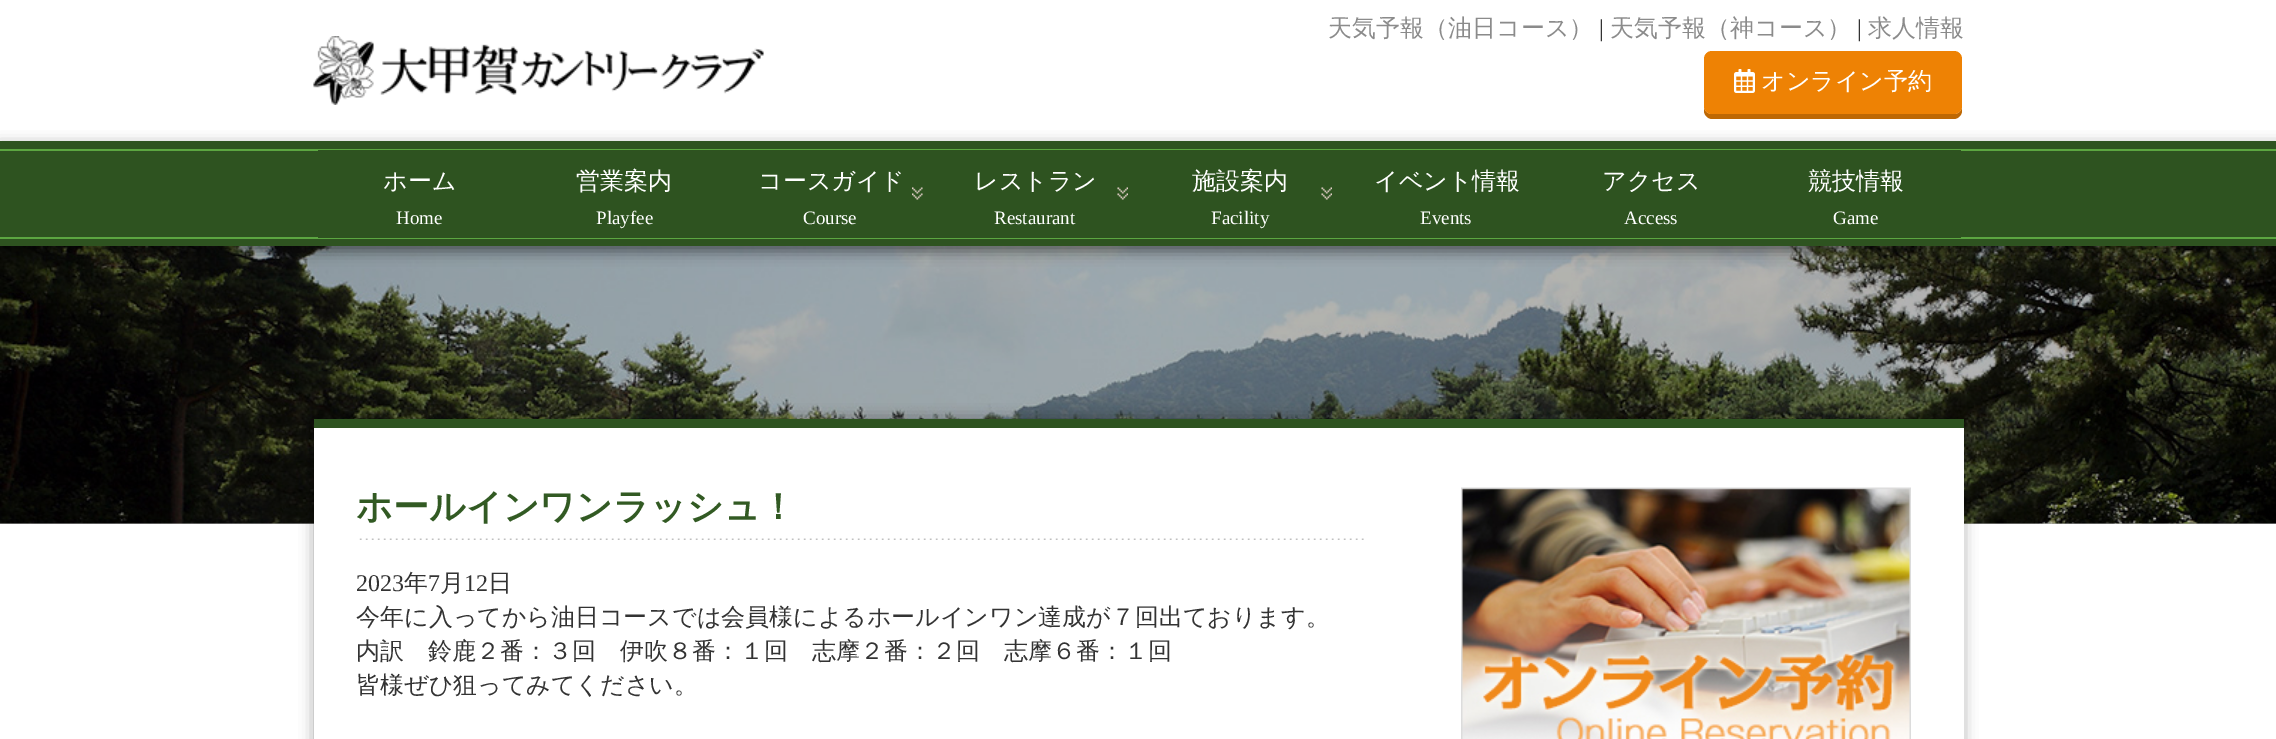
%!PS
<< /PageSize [2276 739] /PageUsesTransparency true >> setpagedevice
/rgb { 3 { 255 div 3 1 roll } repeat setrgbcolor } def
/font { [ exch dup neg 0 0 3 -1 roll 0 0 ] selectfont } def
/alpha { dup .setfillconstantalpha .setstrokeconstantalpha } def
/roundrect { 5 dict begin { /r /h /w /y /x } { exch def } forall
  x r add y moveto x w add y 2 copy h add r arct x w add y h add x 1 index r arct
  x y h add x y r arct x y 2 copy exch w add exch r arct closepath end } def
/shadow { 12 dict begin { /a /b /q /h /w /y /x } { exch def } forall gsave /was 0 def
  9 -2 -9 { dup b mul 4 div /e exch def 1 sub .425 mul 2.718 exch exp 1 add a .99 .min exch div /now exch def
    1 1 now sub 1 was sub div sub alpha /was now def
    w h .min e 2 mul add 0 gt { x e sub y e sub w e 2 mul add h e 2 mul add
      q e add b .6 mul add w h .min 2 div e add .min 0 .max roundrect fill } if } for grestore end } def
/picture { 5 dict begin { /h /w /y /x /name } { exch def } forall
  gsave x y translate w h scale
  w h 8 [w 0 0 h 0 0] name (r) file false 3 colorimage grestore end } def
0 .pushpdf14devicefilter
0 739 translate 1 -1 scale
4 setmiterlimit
255 255 255 rgb
0 0 2276 739 rectfill
179 179 179 rgb
0 523 2276 1 rectfill
(img/1.rgb) 313 36 451 69 picture
190 104 3 rgb
1704 106 moveto 1704 111 lineto 1704 115 1708 119 1712 119 curveto 1954 119 lineto 1958 119 1962 115 1962 111 curveto 1962 106 lineto 1962 111 1959 114 1954 114 curveto 1712 114 lineto 1707 114 1704 111 1704 106 curveto closepath fill
238 130 4 rgb
1704 51 258 63 8 roundrect fill
(img/2.rgb) 1734 69 21 24 picture
(img/5.rgb) 0 246 2276 278 picture
0 0 0 rgb
0 146 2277 105 0 7 0.5 shadow
[
  [0 141 2276 105 46 83 32]
  [0 149 2276 2 92 166 65]
  [0 237 2276 2 92 166 65]
  [318 150 1643 1 46 83 32]
  [318 237 1643 1 46 83 32]
] { aload pop rgb rectfill } forall
(img/3.rgb) 912 187 11 13 picture
(img/4.rgb) 1117 187 11 13 picture
(img/4.rgb) 1321 187 11 13 picture
0 0 0 rgb
315 420 1647 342 0 7.5 0.4 shadow
255 255 255 rgb
314 428 1650 311 rectfill
46 83 32 rgb
314 419 1650 9 rectfill
(img/6.rgb) 359 538 1005 2 picture
(img/7.rgb) 1461 487 450 252 picture
/WenQuanYiZenHei-Medium 24 font
139 139 139 rgb
1328 36 moveto (天気予報（油日コース）) show
/LiberationSerif-Regular 24 font
51 51 51 rgb
1599 36 moveto (|) show
/WenQuanYiZenHei-Medium 24 font
139 139 139 rgb
1610 36 moveto (天気予報（神コース）) show
/LiberationSerif-Regular 24 font
51 51 51 rgb
1857 36 moveto (|) show
/WenQuanYiZenHei-Medium 24 font
139 139 139 rgb
1868 36 moveto (求人情報) show
255 255 255 rgb
1761 89 moveto (オンライン予約) show
383 189 moveto (ホーム) show
/LiberationSerif-Regular 19 font
396 224 moveto (Home) show
/WenQuanYiZenHei-Medium 24 font
576 189 moveto (営業案内) show
/LiberationSerif-Regular 19 font
596 224 moveto (Playfee) show
/WenQuanYiZenHei-Medium 24 font
758 189 moveto (コースガイド) show
/LiberationSerif-Regular 19 font
803 224 moveto (Course) show
/WenQuanYiZenHei-Medium 24 font
974 189 moveto (レストラン) show
/LiberationSerif-Regular 19 font
994 224 moveto (Restaurant) show
/WenQuanYiZenHei-Medium 24 font
1192 189 moveto (施設案内) show
/LiberationSerif-Regular 19 font
1211 224 moveto (Facility) show
/WenQuanYiZenHei-Medium 24 font
1374 189 moveto (イベント情報) show
/LiberationSerif-Regular 19 font
1420 224 moveto (Events) show
/WenQuanYiZenHei-Medium 24 font
1602 189 moveto (アクセス) show
/LiberationSerif-Regular 19 font
1624 224 moveto (Access) show
/WenQuanYiZenHei-Medium 24 font
1808 189 moveto (競技情報) show
/LiberationSerif-Regular 19 font
1833 224 moveto (Game) show
/WenQuanYiZenHei-Bold 36 font
50 90 35 rgb
356 519 moveto (ホールインワンラッシュ！) show
/LiberationSerif-Regular 24 font
51 51 51 rgb
356 591 moveto (2023) show
/WenQuanYiZenHei-Medium 24 font
404 591 moveto (年) show
/LiberationSerif-Regular 24 font
428 591 moveto (7) show
/WenQuanYiZenHei-Medium 24 font
440 591 moveto (月) show
/LiberationSerif-Regular 24 font
464 591 moveto (12) show
/WenQuanYiZenHei-Medium 24 font
[
  [(日) 488 591]
  [(今年に入ってから油日コースでは会員様によるホールインワン達成が７回出ております。) 356 625]
  [(内訳　鈴鹿２番：３回　伊吹８番：１回　志摩２番：２回　志摩６番：１回) 356 659]
  [(皆様ぜひ狙ってみてください。) 356 693]
] { aload pop moveto show } forall
.poppdf14devicefilter showpage
